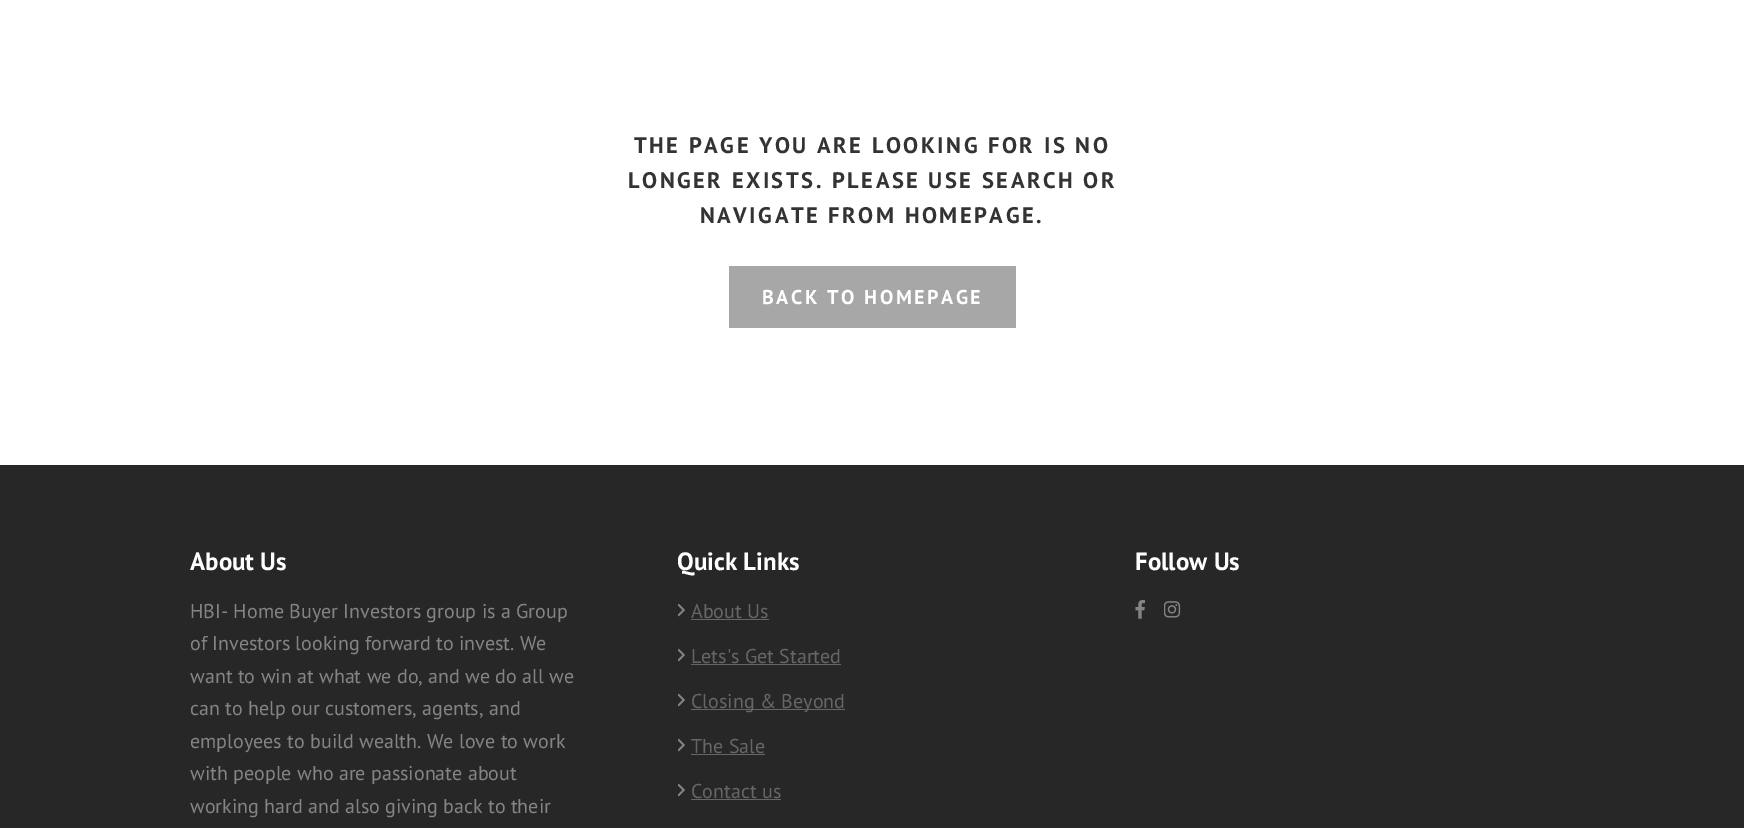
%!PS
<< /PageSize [1744 828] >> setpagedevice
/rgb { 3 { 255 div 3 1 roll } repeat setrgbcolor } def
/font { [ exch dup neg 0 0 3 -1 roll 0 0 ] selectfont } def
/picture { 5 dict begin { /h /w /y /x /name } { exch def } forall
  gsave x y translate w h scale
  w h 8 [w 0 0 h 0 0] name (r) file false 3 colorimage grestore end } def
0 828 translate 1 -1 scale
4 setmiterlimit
255 255 255 rgb
0 0 1744 828 rectfill
167 167 167 rgb
729 266 287 62 rectfill
39 39 39 rgb
0 465 1744 363 rectfill
(img/1.rgb) 678 603 7 14 picture
102 102 102 rgb
691 619 78 1 rectfill
(img/1.rgb) 678 648 7 14 picture
691 664 150 1 rectfill
(img/1.rgb) 678 693 7 14 picture
691 709 154 1 rectfill
(img/1.rgb) 678 738 7 14 picture
691 754 74 1 rectfill
(img/1.rgb) 678 783 7 14 picture
691 799 90 1 rectfill
(img/2.rgb) 1135 600 10 19 picture
(img/3.rgb) 1164 601 17 17 picture
/PTSans-Bold 22.5 font
51 51 51 rgb
634 153 moveto 2.5 0 (THE PAGE YOU ARE LOOKING FOR IS NO) ashow
628 188 moveto 2.5 0 (LONGER EXISTS. PLEASE USE SEARCH OR) ashow
700 223 moveto 2.5 0 (NAVIGATE FROM HOMEPAGE.) ashow
/PTSans-Bold 20 font
255 255 255 rgb
762 304 moveto 2.5 0 (BACK TO HOMEPAGE) ashow
/PTSans-Bold 25 font
190 570 moveto (About Us) show
/PTSans-Regular 20 font
132 132 132 rgb
[
  [(HBI- Home Buyer Investors group is a Group) 190 618]
  [(of Investors looking forward to invest. We) 190 650]
  [(want to win at what we do, and we do all we) 190 683]
  [(can to help our customers, agents, and) 190 715]
  [(employees to build wealth. We love to work) 190 748]
  [(with people who are passionate about) 190 780]
  [(working hard and also giving back to their) 190 813]
] { aload pop moveto show } forall
/PTSans-Bold 25 font
255 255 255 rgb
677 570 moveto (Quick Links) show
/PTSans-Regular 20 font
102 102 102 rgb
[
  [(About Us) 691 618]
  [(Lets's Get Started) 691 663]
  [(Closing & Beyond) 691 708]
  [(The Sale) 691 753]
  [(Contact us) 691 798]
] { aload pop moveto show } forall
/PTSans-Bold 25 font
255 255 255 rgb
1135 570 moveto (Follow Us) show
showpage
